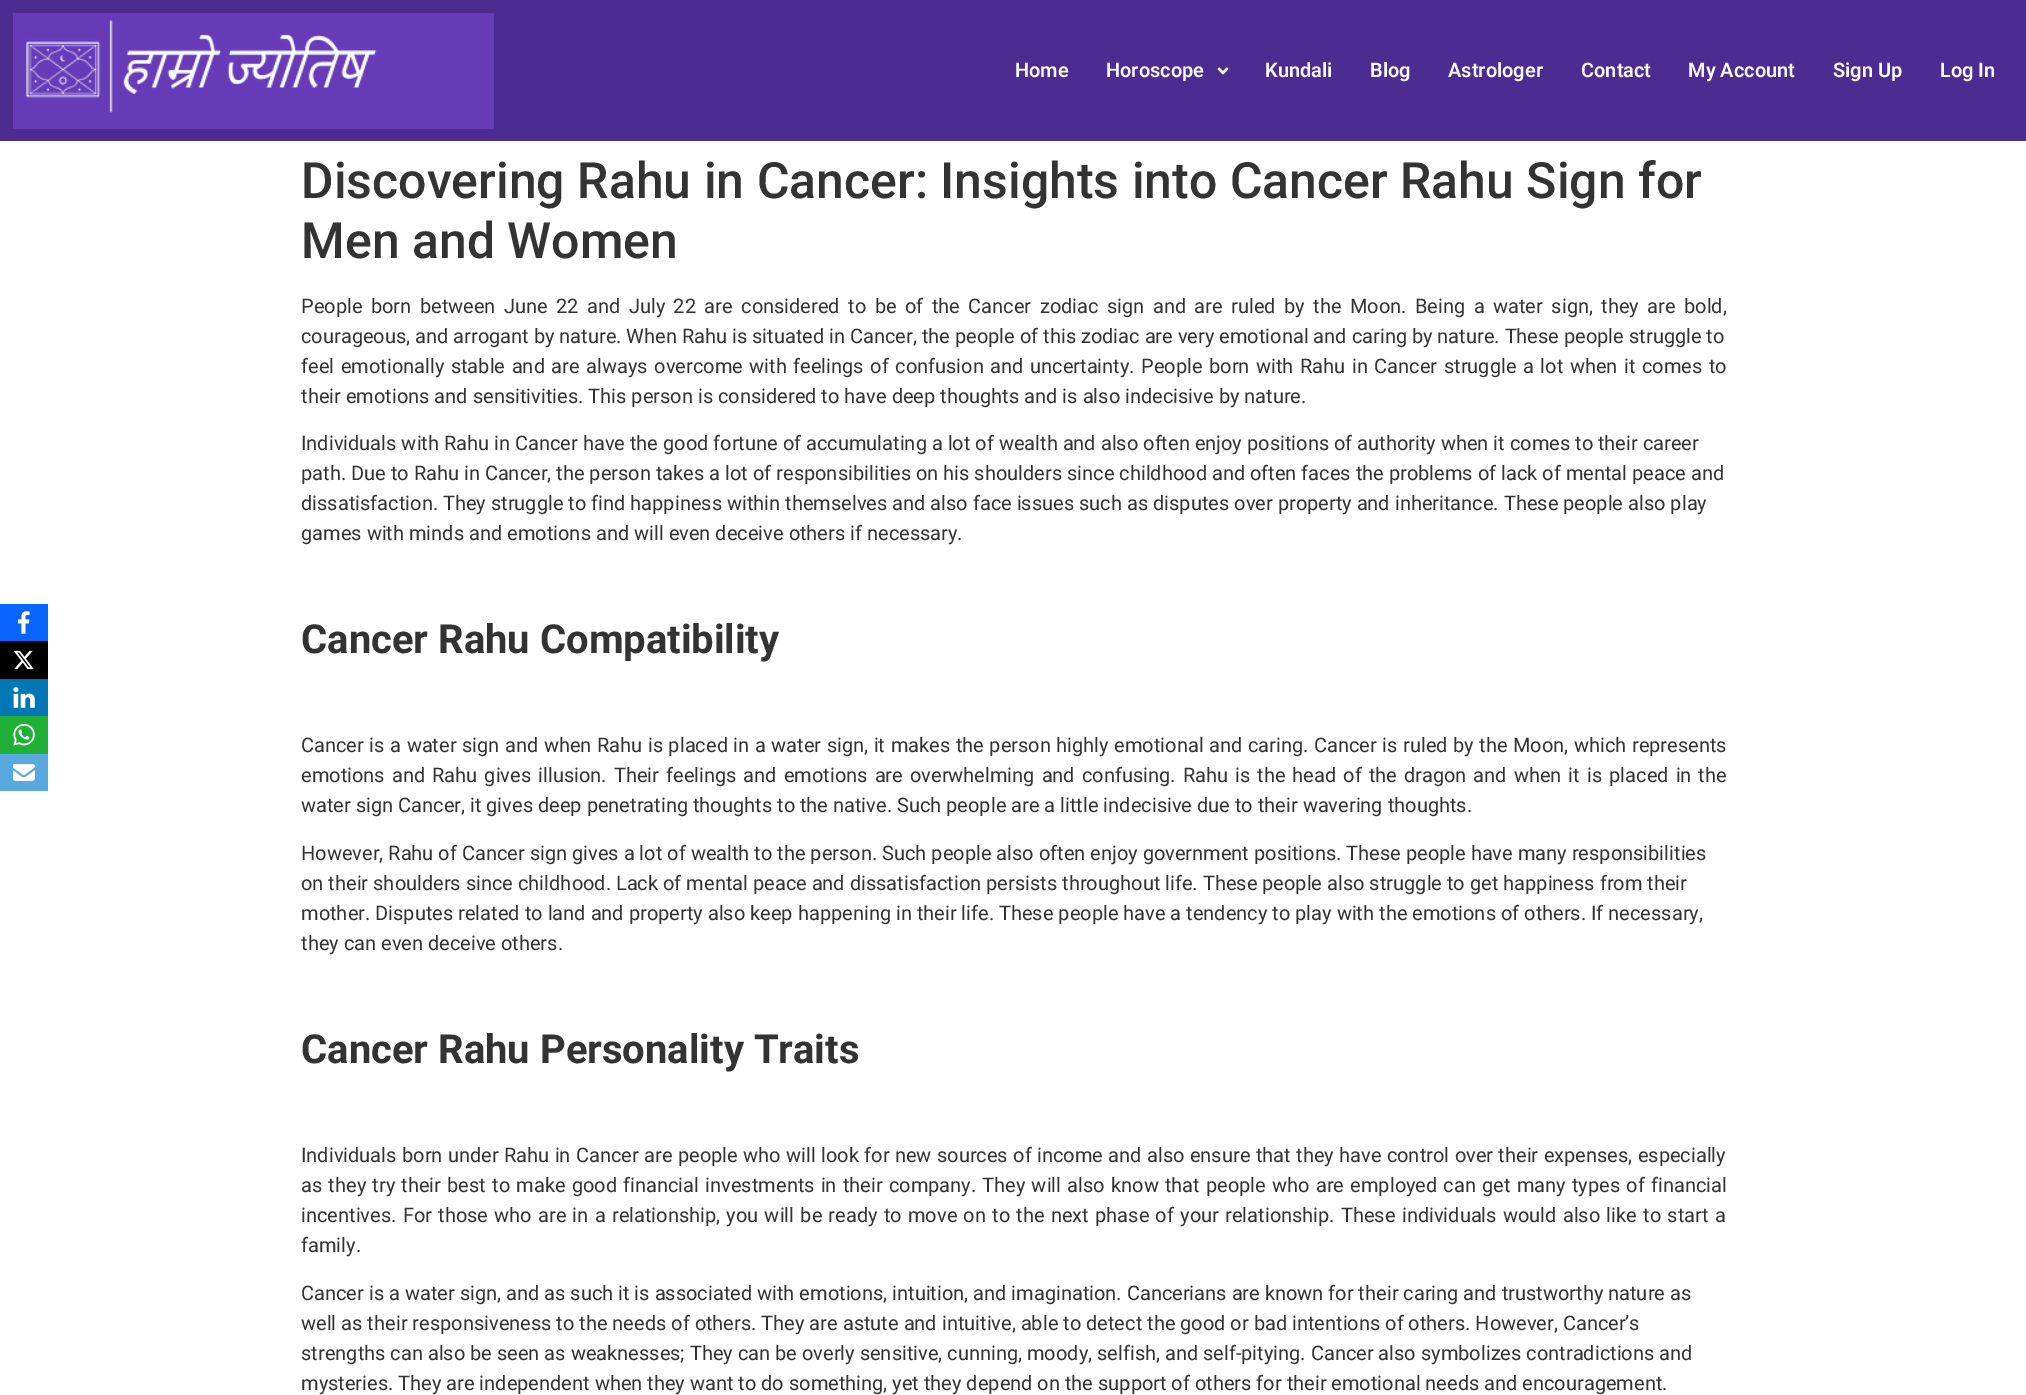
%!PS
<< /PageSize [2026 1395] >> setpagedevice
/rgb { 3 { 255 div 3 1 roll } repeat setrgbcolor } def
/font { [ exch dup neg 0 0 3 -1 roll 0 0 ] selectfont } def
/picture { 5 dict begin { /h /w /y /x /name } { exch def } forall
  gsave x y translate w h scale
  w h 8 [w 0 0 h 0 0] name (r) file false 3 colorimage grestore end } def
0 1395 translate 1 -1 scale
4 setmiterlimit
255 255 255 rgb
0 0 2026 1395 rectfill
77 44 145 rgb
0 0 2026 141 rectfill
103 58 183 rgb
13 13 481 116 rectfill
(img/1.rgb) 26 19 351 94 picture
(img/2.rgb) 1217 67 12 8 picture
8 102 255 rgb
0 604 48 37 rectfill
(img/3.rgb) 17 611 13 23 picture
0 0 0 rgb
0 641 48 38 rectfill
(img/4.rgb) 13 650 21 20 picture
0 119 181 rgb
0 679 48 37 rectfill
(img/5.rgb) 13 687 22 21 picture
32 176 56 rgb
0 716 48 38 rectfill
(img/6.rgb) 13 724 22 22 picture
88 169 222 rgb
0 754 48 37 rectfill
(img/7.rgb) 13 764 22 17 picture
/Roboto-SemiBold 20 font
250 250 250 rgb
[
  [(Home) 1015 77]
  [(Horoscope) 1106 77]
  [(Kundali) 1265 77]
  [(Blog) 1370 77]
  [(Astrologer) 1448 77]
  [(Contact) 1581 77]
  [(My Account) 1688 77]
  [(Sign Up) 1833 77]
  [(Log In) 1940 77]
] { aload pop moveto show } forall
/Roboto-Medium 50 font
51 51 51 rgb
301 198 moveto (Discovering Rahu in Cancer: Insights into Cancer Rahu Sign for) show
301 258 moveto (Men and Women) show
/Roboto-Regular 20 font
301 313 moveto 3.5 0 32 (People born between June 22 and July 22 are considered to be of the Cancer zodiac sign and are ruled by the Moon. Being a water sign, they are bold,) widthshow
301 343 moveto (courageous, and arrogant by nature. When Rahu is situated in Cancer, the people of this zodiac are very emotional and caring by nature. These people struggle to) show
301 373 moveto 1.6 0 32 (feel emotionally stable and are always overcome with feelings of confusion and uncertainty. People born with Rahu in Cancer struggle a lot when it comes to) widthshow
[
  [(their emotions and sensitivities. This person is considered to have deep thoughts and is also indecisive by nature.) 301 403]
  [(Individuals with Rahu in Cancer have the good fortune of accumulating a lot of wealth and also often enjoy positions of authority when it comes to their career) 301 450]
  [(path. Due to Rahu in Cancer, the person takes a lot of responsibilities on his shoulders since childhood and often faces the problems of lack of mental peace and) 301 480]
  [(dissatisfaction. They struggle to find happiness within themselves and also face issues such as disputes over property and inheritance. These people also play) 301 510]
  [(games with minds and emotions and will even deceive others if necessary.) 301 540]
] { aload pop moveto show } forall
/Roboto-Bold 40 font
301 653 moveto (Cancer Rahu Compatibility) show
/Roboto-Regular 20 font
301 752 moveto 0.6 0 32 (Cancer is a water sign and when Rahu is placed in a water sign, it makes the person highly emotional and caring. Cancer is ruled by the Moon, which represents) widthshow
301 782 moveto 2.1 0 32 (emotions and Rahu gives illusion. Their feelings and emotions are overwhelming and confusing. Rahu is the head of the dragon and when it is placed in the) widthshow
[
  [(water sign Cancer, it gives deep penetrating thoughts to the native. Such people are a little indecisive due to their wavering thoughts.) 301 812]
  [(However, Rahu of Cancer sign gives a lot of wealth to the person. Such people also often enjoy government positions. These people have many responsibilities) 301 860]
  [(on their shoulders since childhood. Lack of mental peace and dissatisfaction persists throughout life. These people also struggle to get happiness from their) 301 890]
  [(mother. Disputes related to land and property also keep happening in their life. These people have a tendency to play with the emotions of others. If necessary,) 301 920]
  [(they can even deceive others.) 301 950]
] { aload pop moveto show } forall
/Roboto-Bold 40 font
301 1063 moveto (Cancer Rahu Personality Traits) show
/Roboto-Regular 20 font
301 1162 moveto 0.45 0 32 (Individuals born under Rahu in Cancer are people who will look for new sources of income and also ensure that they have control over their expenses, especially) widthshow
301 1192 moveto 1.25 0 32 (as they try their best to make good financial investments in their company. They will also know that people who are employed can get many types of financial) widthshow
301 1222 moveto 1.3 0 32 (incentives. For those who are in a relationship, you will be ready to move on to the next phase of your relationship. These individuals would also like to start a) widthshow
[
  [(family.) 301 1252]
  [(Cancer is a water sign, and as such it is associated with emotions, intuition, and imagination. Cancerians are known for their caring and trustworthy nature as) 301 1300]
  [(well as their responsiveness to the needs of others. They are astute and intuitive, able to detect the good or bad intentions of others. However, Cancer’s) 301 1330]
  [(strengths can also be seen as weaknesses; They can be overly sensitive, cunning, moody, selfish, and self-pitying. Cancer also symbolizes contradictions and) 301 1360]
  [(mysteries. They are independent when they want to do something, yet they depend on the support of others for their emotional needs and encouragement.) 301 1390]
] { aload pop moveto show } forall
showpage
